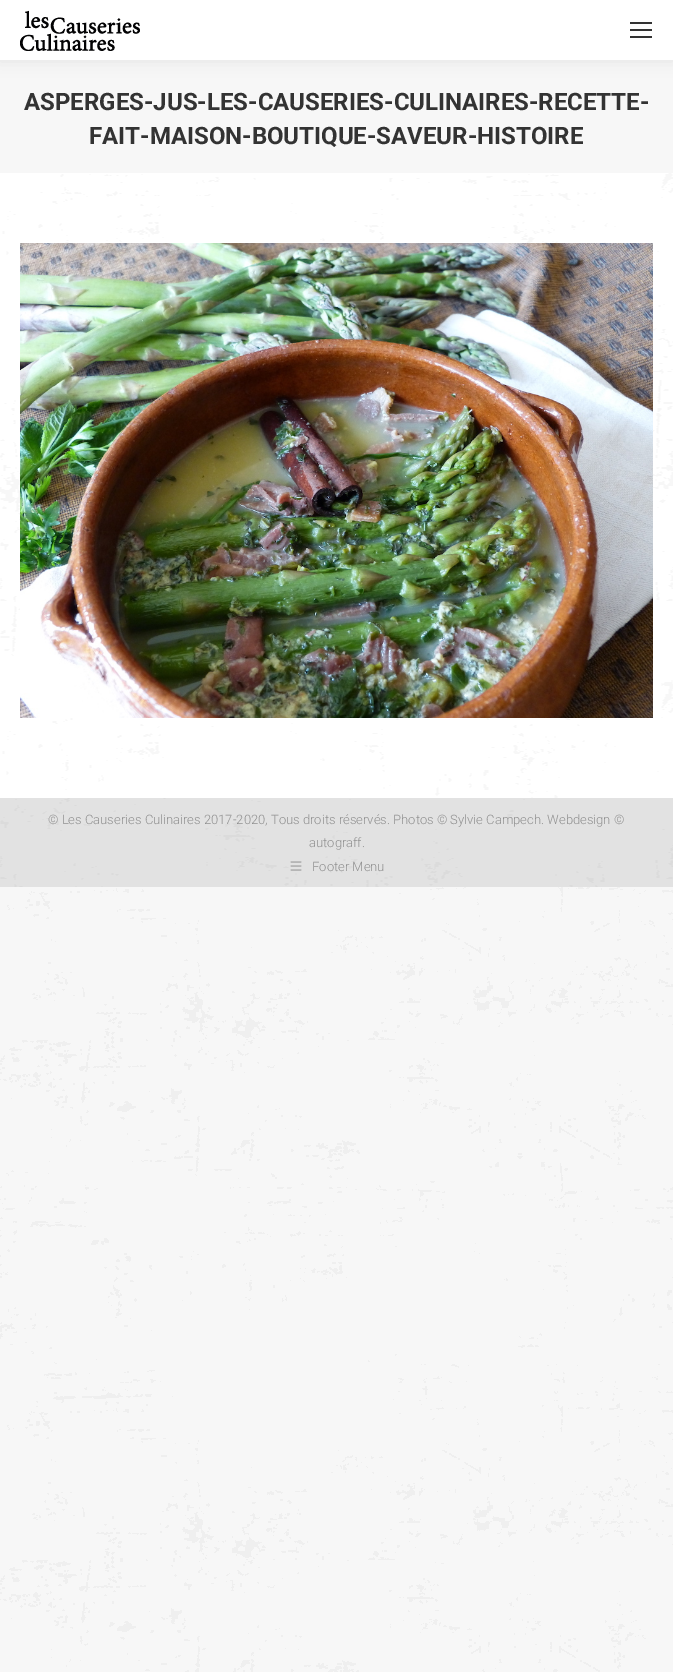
%!PS
<< /PageSize [673 1672] /PageUsesTransparency true >> setpagedevice
/rgb { 3 { 255 div 3 1 roll } repeat setrgbcolor } def
/font { [ exch dup neg 0 0 3 -1 roll 0 0 ] selectfont } def
/alpha { dup .setfillconstantalpha .setstrokeconstantalpha } def
/roundrect { 5 dict begin { /r /h /w /y /x } { exch def } forall
  x r add y moveto x w add y 2 copy h add r arct x w add y h add x 1 index r arct
  x y h add x y r arct x y 2 copy exch w add exch r arct closepath end } def
/shadow { 12 dict begin { /a /b /q /h /w /y /x } { exch def } forall gsave /was 0 def
  9 -2 -9 { dup b mul 4 div /e exch def 1 sub .425 mul 2.718 exch exp 1 add a .99 .min exch div /now exch def
    1 1 now sub 1 was sub div sub alpha /was now def
    w h .min e 2 mul add 0 gt { x e sub y e sub w e 2 mul add h e 2 mul add
      q e add b .6 mul add w h .min 2 div e add .min 0 .max roundrect fill } if } for grestore end } def
/picture { 5 dict begin { /h /w /y /x /name } { exch def } forall
  gsave x y translate w h scale
  w h 8 [w 0 0 h 0 0] name (r) file false 3 colorimage grestore end } def
0 .pushpdf14devicefilter
0 1672 translate 1 -1 scale
4 setmiterlimit
247 247 247 rgb
0 0 673 1672 rectfill
(img/1.rgb) 0 887 673 785 picture
255 255 255 rgb
0 173 673 625 rectfill
(img/2.rgb) 0 173 673 625 picture
0 0 0 rgb
-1 -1 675 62 0 7.5 0.07 shadow
255 255 255 rgb
0 0 673 60 rectfill
(img/3.rgb) 20 10 120 41 picture
[
  [630 22 22 2 51 51 51]
  [630 29 22 2 51 51 51]
  [630 36 22 2 51 51 51]
] { aload pop rgb rectfill } forall
(img/4.rgb) 20 243 633 475 picture
226 226 226 rgb
0 798 673 89 rectfill
(img/5.rgb) 0 798 673 89 picture
(img/6.rgb) 290 861 12 10 picture
/Roboto-Bold 24 font
51 51 51 rgb
24 110 moveto (ASPERGES-JUS-LES-CAUSERIES-CULINAIRES-RECETTE-) show
89 144 moveto (FAIT-MAISON-BOUTIQUE-SAVEUR-HISTOIRE) show
/Roboto-Light 13 font
144 144 144 rgb
[
  [(© Les Causeries Culinaires 2017-2020, Tous droits réservés. Photos © Sylvie Campech. Webdesign ©) 48 824]
  [(autograff.) 309 847]
  [(Footer Menu) 312 871]
] { aload pop moveto show } forall
.poppdf14devicefilter showpage
